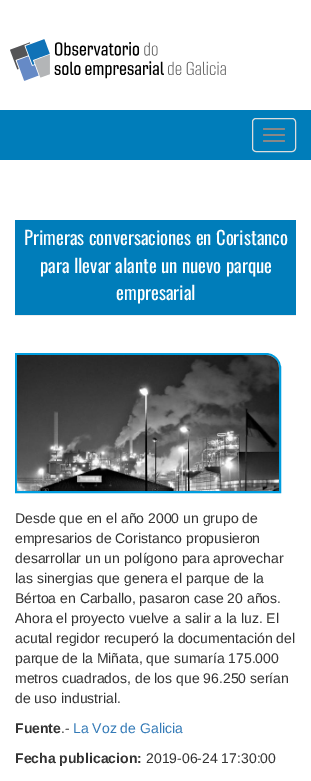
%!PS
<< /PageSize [311 781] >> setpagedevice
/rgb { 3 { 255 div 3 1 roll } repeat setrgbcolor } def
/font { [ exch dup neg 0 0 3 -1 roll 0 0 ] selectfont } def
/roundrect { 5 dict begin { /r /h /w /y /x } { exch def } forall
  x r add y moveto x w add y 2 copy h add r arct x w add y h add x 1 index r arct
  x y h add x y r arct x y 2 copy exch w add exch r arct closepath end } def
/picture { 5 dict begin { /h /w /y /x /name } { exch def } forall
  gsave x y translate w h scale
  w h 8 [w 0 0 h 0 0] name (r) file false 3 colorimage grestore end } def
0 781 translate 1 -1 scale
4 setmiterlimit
255 255 255 rgb
0 0 311 781 rectfill
(img/1.rgb) 10 39 216 42 picture
0 125 186 rgb
0 110 311 50 rectfill
221 221 221 rgb
252.5 118.5 43 33 3.5 roundrect stroke
136 136 136 rgb
263 128 22 2 1 roundrect fill
263 134 22 2 1 roundrect fill
263 140 22 2 1 roundrect fill
0 125 186 rgb
15 220 281 95 rectfill
238 238 238 rgb
15 315 281 1 rectfill
0 157 223 rgb
2 setlinewidth
16 354 moveto 266 354 lineto 273.5 354 280 360.5 280 368 curveto 280 492 lineto 16 492 lineto closepath stroke
(img/2.rgb) 17 355 262 136 picture
/Oswald-Regular 18.7 font
255 255 255 rgb
[
  [(Primeras conversaciones en Coristanco) 24 245]
  [(para llevar alante un nuevo parque) 40 273]
  [(empresarial) 116 300]
] { aload pop moveto show } forall
/LiberationSans-Regular 14 font
51 51 51 rgb
[
  [(Desde que en el año 2000 un grupo de) 15 523]
  [(empresarios de Coristanco propusieron) 15 543]
  [(desarrollar un un polígono para aprovechar) 15 563]
  [(las sinergias que genera el parque de la) 15 583]
  [(Bértoa en Carballo, pasaron case 20 años.) 15 603]
  [(Ahora el proyecto vuelve a salir a la luz. El) 15 623]
  [(acutal regidor recuperó la documentación del) 15 643]
  [(parque de la Miñata, que sumaría 175.000) 15 663]
  [(metros cuadrados, de los que 96.250 serían) 15 683]
  [(de uso industrial.) 15 703]
] { aload pop moveto show } forall
/LiberationSans-Bold 14 font
15 733 moveto (Fuente) show
/LiberationSans-Regular 14 font
61 733 moveto (.-) show
51 122 183 rgb
73 733 moveto (La Voz de Galicia) show
/LiberationSans-Bold 14 font
51 51 51 rgb
15 763 moveto (Fecha publicacion:) show
/LiberationSans-Regular 14 font
146 763 moveto (2019-06-24 17:30:00) show
showpage
